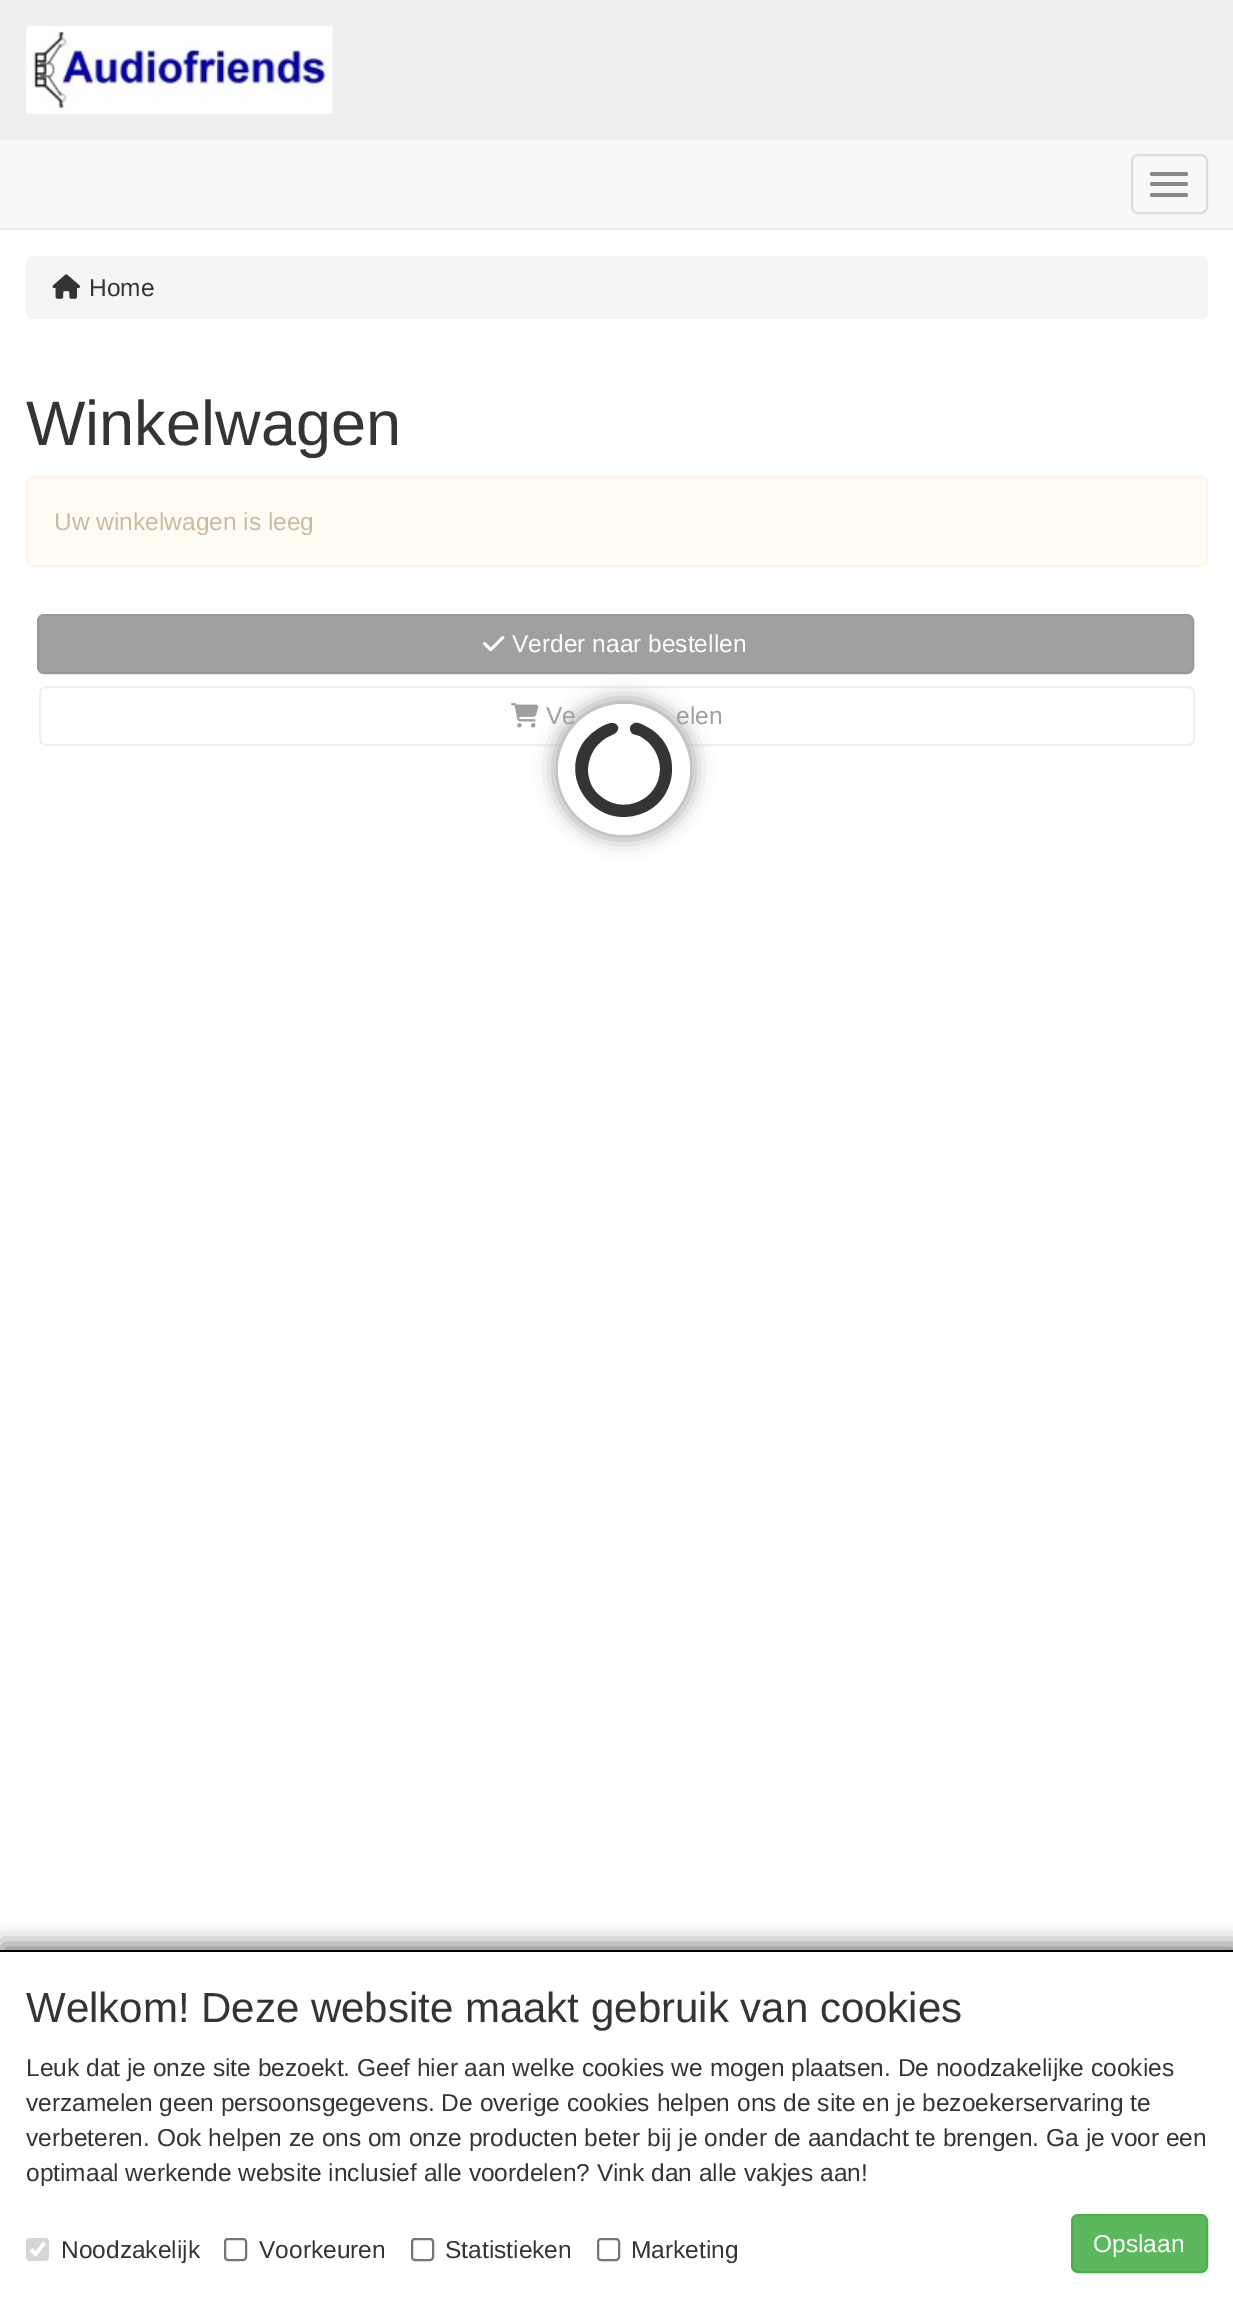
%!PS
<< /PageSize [1233 2297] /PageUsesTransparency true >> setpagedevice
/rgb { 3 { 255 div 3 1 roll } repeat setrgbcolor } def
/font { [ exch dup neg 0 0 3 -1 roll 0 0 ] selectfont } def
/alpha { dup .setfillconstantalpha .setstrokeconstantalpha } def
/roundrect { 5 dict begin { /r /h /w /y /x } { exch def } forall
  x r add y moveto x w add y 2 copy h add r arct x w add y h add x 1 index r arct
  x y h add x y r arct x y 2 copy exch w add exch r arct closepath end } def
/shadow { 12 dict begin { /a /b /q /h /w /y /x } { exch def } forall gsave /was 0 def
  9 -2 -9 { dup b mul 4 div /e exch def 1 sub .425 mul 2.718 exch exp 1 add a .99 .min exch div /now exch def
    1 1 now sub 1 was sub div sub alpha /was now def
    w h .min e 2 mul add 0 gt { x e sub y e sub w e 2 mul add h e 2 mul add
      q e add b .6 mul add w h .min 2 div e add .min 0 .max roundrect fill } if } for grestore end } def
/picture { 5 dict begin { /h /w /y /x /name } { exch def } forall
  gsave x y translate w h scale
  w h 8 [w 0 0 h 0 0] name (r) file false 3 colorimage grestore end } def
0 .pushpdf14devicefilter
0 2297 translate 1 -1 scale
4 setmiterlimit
255 255 255 rgb
0 0 1233 2297 rectfill
239 239 239 rgb
0 0 1233 140 rectfill
(img/1.rgb) 26 26 307 88 picture
248 248 248 rgb
0 140 1233 88 rectfill
235 235 235 rgb
0 228 1233 2 rectfill
221 221 221 rgb
2 setlinewidth
1132 155 75 58 6 roundrect stroke
136 136 136 rgb
1150 172 38 4 2 roundrect fill
1150 182 38 4 2 roundrect fill
1150 193 38 4 2 roundrect fill
245 245 245 rgb
26 256 1182 63 7 roundrect fill
(img/2.rgb) 52 274 28 25 picture
254 252 242 rgb
27 477 1180 89 6 roundrect gsave fill grestore
253 246 231 rgb
stroke
160 160 160 rgb
38 615 1155 58 6 roundrect gsave fill grestore
153 153 153 rgb
stroke
239 239 239 rgb
40 687 1154 58 6 roundrect stroke
(img/4.rgb) 511 703 28 25 picture
170 170 170 rgb
553 698 142 142 71 9 1 shadow
(img/3.rgb) 483 635 22 17 picture
gsave
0 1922 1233 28 rectclip
128 128 128 rgb
2 1944 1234 349 0 10.5 1 shadow
grestore
0 0 0 rgb
0 1950 1233 2 rectfill
214 214 214 rgb
26 2238 23 23 4 roundrect fill
255 255 255 rgb
3.6 setlinewidth
31 2249.5 moveto 35.5 2254 lineto 44.5 2243 lineto stroke
118 118 118 rgb
2 setlinewidth
225 2239 21 21 3 roundrect stroke
412 2239 21 21 3 roundrect stroke
598 2239 21 21 3 roundrect stroke
92 184 92 rgb
1072 2215 135 57 6 roundrect gsave fill grestore
76 174 76 rgb
stroke
/LiberationSans-Regular 24.5 font
52 52 52 rgb
89 296 moveto (Home) show
/LiberationSans-Regular 63 font
26 445 moveto (Winkelwagen) show
/LiberationSans-Regular 24.5 font
200 186 163 rgb
54 530 moveto (Uw winkelwagen is leeg) show
255 255 255 rgb
512 652 moveto (Verder naar bestellen) show
159 159 159 rgb
546 724 moveto (Ve) show
676 724 moveto (elen) show
255 255 255 rgb
558 704 132 131 65.5 roundrect fill
52 52 52 rgb
618 727 moveto 619 734 610 735 606 738 curveto 594 745 587 759 588 773 curveto 589 781 592 789 598 794 curveto 621 817 660 801 660 769 curveto 660 758 655 748 647 741 curveto 640 736 lineto 633 734 lineto 629 731 629 726 633 724 curveto 636 721 641 724 645 726 curveto 685 745 679 804 637 815 curveto 595 827 559 780 583 743 curveto 588 736 595 730 603 726 curveto 607 724 615 720 618 727 curveto closepath fill
/LiberationSans-Regular 42 font
26 2022 moveto (Welkom! Deze website maakt gebruik van cookies) show
/LiberationSans-Regular 24.5 font
[
  [(Leuk dat je onze site bezoekt. Geef hier aan welke cookies we mogen plaatsen. De noodzakelijke cookies) 26 2076]
  [(verzamelen geen persoonsgegevens. De overige cookies helpen ons de site en je bezoekerservaring te) 26 2111]
  [(verbeteren. Ook helpen ze ons om onze producten beter bij je onder de aandacht te brengen. Ga je voor een) 26 2146]
  [(optimaal werkende website inclusief alle voordelen? Vink dan alle vakjes aan!) 26 2181]
  [(Noodzakelijk) 61 2258]
  [(Voorkeuren) 259 2258]
  [(Statistieken) 445 2258]
  [(Marketing) 631 2258]
] { aload pop moveto show } forall
255 255 255 rgb
1093 2252 moveto (Opslaan) show
.poppdf14devicefilter showpage
